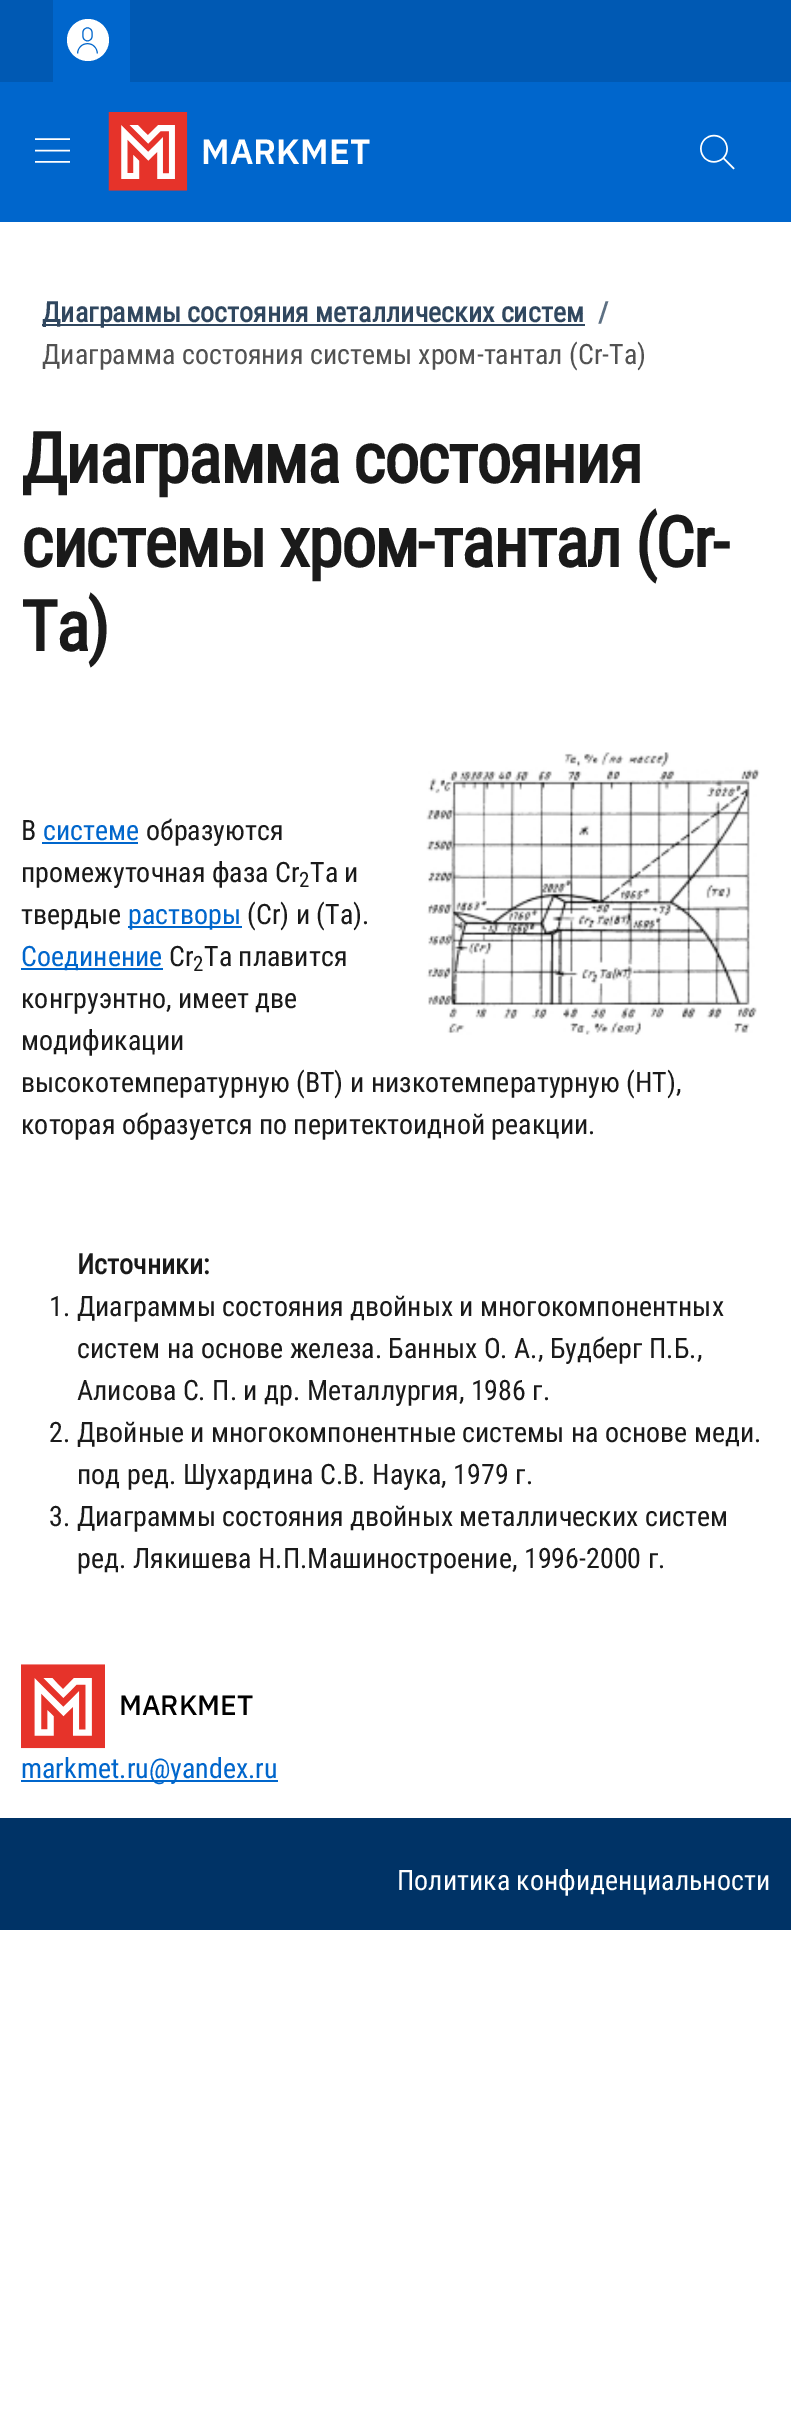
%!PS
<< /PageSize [791 2420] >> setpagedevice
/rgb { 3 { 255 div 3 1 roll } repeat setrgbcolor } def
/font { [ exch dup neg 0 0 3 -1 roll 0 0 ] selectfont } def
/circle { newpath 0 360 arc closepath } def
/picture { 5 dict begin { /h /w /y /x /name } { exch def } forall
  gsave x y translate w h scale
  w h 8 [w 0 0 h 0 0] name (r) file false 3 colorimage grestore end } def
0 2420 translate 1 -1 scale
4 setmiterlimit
255 255 255 rgb
0 0 791 2420 rectfill
0 89 179 rgb
0 0 791 82 rectfill
0 102 204 rgb
53 0 77 82 rectfill
255 255 255 rgb
88 40 21 circle fill
(img/1.rgb) 77 27 21 27 picture
0 102 204 rgb
0 82 791 140 rectfill
(img/2.rgb) 35 138 35 25 picture
(img/3.rgb) 108 112 80 79 picture
(img/4.rgb) 700 134 35 36 picture
48 71 95 rgb
42 324 543 2 rectfill
(img/5.rgb) 426 752 334 283 picture
[
  [42 842 96 2 0 102 204]
  [128 926 114 2 0 102 204]
  [21 968 142 2 0 102 204]
] { aload pop rgb rectfill } forall
(img/6.rgb) 21 1664 84 85 picture
21 1780 257 2 rectfill
0 51 102 rgb
0 1818 791 112 rectfill
/IBMPlexSansArabic-SemiBold 35 font
255 255 255 rgb
201 164 moveto (MARKMET) show
/RobotoCondensed-Bold 28 font
48 71 95 rgb
42 322 moveto (Диаграммы состояния металлических систем) show
93 112 131 rgb
598 322 moveto (/) show
/RobotoCondensed-Regular 28 font
82 82 82 rgb
42 364 moveto (Диаграмма состояния системы хром-тантал \(Cr-Ta\)) show
/RobotoCondensed-Bold 70 font
26 26 26 rgb
21 483 moveto -1.75 0 (Диаграмма состояния) ashow
21 567 moveto -1.75 0 (системы хром-тантал \(Cr-) ashow
21 651 moveto -1.75 0 (Ta\)) ashow
/RobotoCondensed-Regular 28 font
21 840 moveto (В) show
0 102 204 rgb
43 840 moveto (системе) show
26 26 26 rgb
146 840 moveto (образуются) show
21 882 moveto (промежуточная фаза Сr) show
/RobotoCondensed-Regular 21 font
299 887 moveto (2) show
/RobotoCondensed-Regular 28 font
310 882 moveto (Та и) show
21 924 moveto (твердые) show
0 102 204 rgb
128 924 moveto (растворы) show
26 26 26 rgb
247 924 moveto (\(Сr\) и \(Та\).) show
0 102 204 rgb
21 966 moveto (Соединение) show
26 26 26 rgb
169 966 moveto (Сr) show
/RobotoCondensed-Regular 21 font
193 971 moveto (2) show
/RobotoCondensed-Regular 28 font
[
  [(Та плавится) 204 966]
  [(конгруэнтно, имеет две) 21 1008]
  [(модификации) 21 1050]
  [(высокотемпературную \(ВТ\) и низкотемпературную \(НТ\),) 21 1092]
  [(которая образуется по перитектоидной реакции.) 21 1134]
] { aload pop moveto show } forall
/RobotoCondensed-Bold 28 font
77 1274 moveto (Источники:) show
/RobotoCondensed-Regular 28 font
[
  [(1. Диаграммы состояния двойных и многокомпонентных) 49 1316]
  [(систем на основе железа. Банных О. А., Будберг П.Б.,) 77 1358]
  [(Алисова С. П. и др. Металлургия, 1986 г.) 77 1400]
  [(2. Двойные и многокомпонентные системы на основе меди.) 49 1442]
  [(под ред. Шухардина С.В. Наука, 1979 г.) 77 1484]
  [(3. Диаграммы состояния двойных металлических систем) 49 1526]
  [(ред. Лякишева Н.П.Машиностроение, 1996-2000 г.) 77 1568]
] { aload pop moveto show } forall
/IBMPlexSansArabic-Medium 28 font
0 0 0 rgb
119 1715 moveto (MARKMET) show
/RobotoCondensed-Regular 28 font
0 102 204 rgb
21 1778 moveto (markmet.ru@yandex.ru) show
255 255 255 rgb
397 1890 moveto (Политика конфиденциальности) show
showpage
